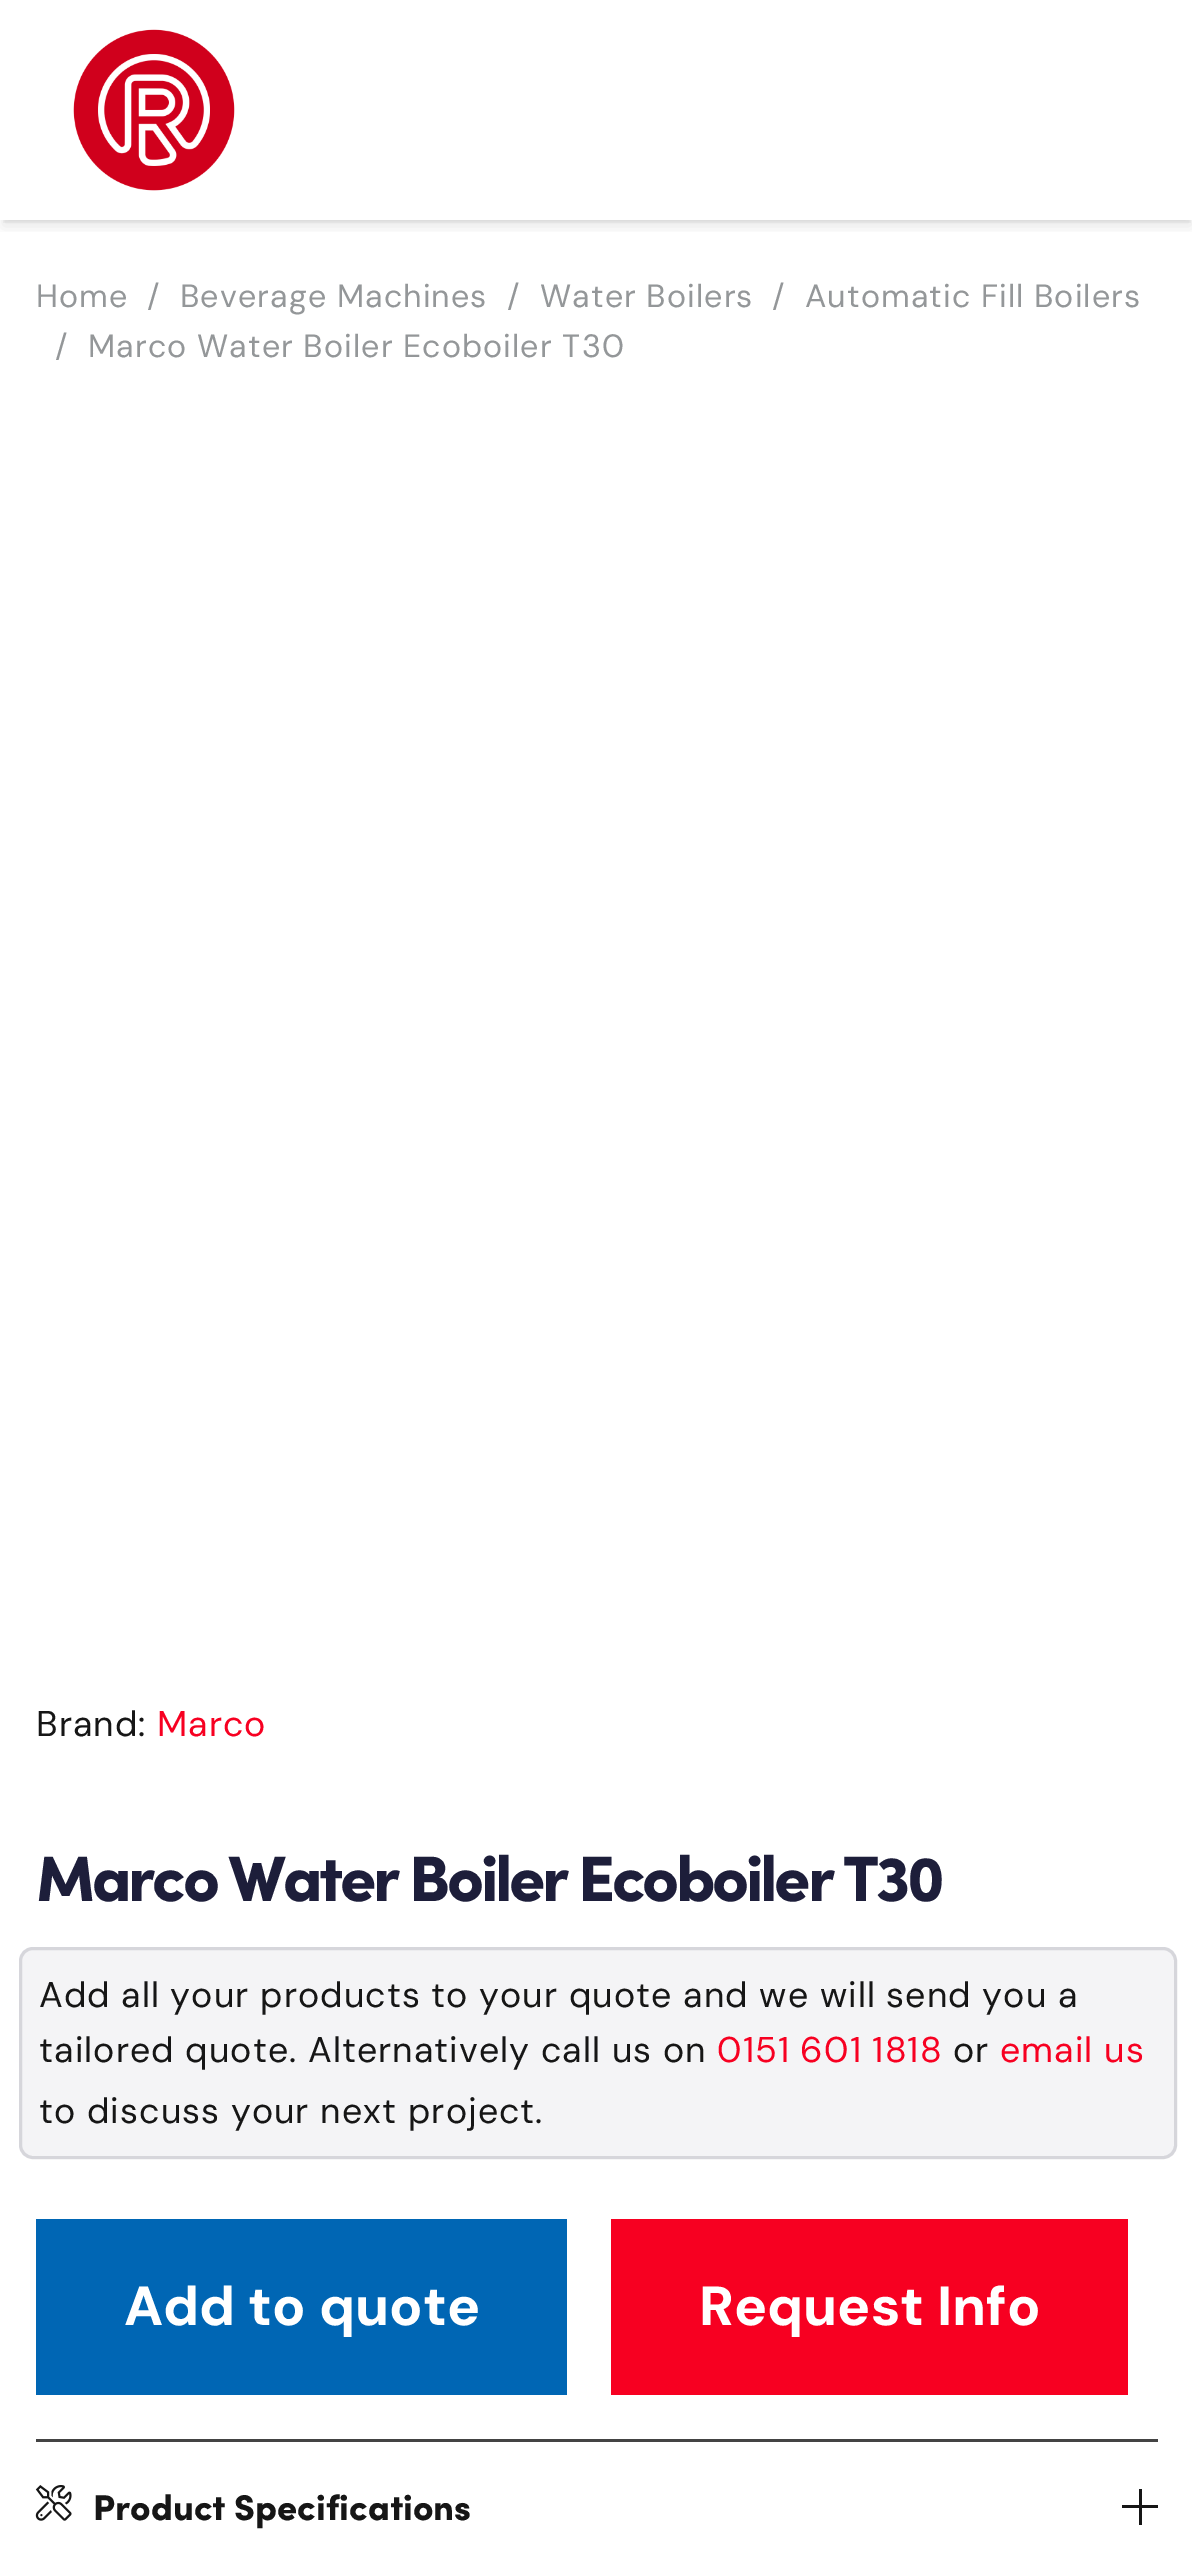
%!PS
<< /PageSize [1192 2560] /PageUsesTransparency true >> setpagedevice
/rgb { 3 { 255 div 3 1 roll } repeat setrgbcolor } def
/font { [ exch dup neg 0 0 3 -1 roll 0 0 ] selectfont } def
/alpha { dup .setfillconstantalpha .setstrokeconstantalpha } def
/roundrect { 5 dict begin { /r /h /w /y /x } { exch def } forall
  x r add y moveto x w add y 2 copy h add r arct x w add y h add x 1 index r arct
  x y h add x y r arct x y 2 copy exch w add exch r arct closepath end } def
/shadow { 12 dict begin { /a /b /q /h /w /y /x } { exch def } forall gsave /was 0 def
  9 -2 -9 { dup b mul 4 div /e exch def 1 sub .425 mul 2.718 exch exp 1 add a .99 .min exch div /now exch def
    1 1 now sub 1 was sub div sub alpha /was now def
    w h .min e 2 mul add 0 gt { x e sub y e sub w e 2 mul add h e 2 mul add
      q e add b .6 mul add w h .min 2 div e add .min 0 .max roundrect fill } if } for grestore end } def
/picture { 5 dict begin { /h /w /y /x /name } { exch def } forall
  gsave x y translate w h scale
  w h 8 [w 0 0 h 0 0] name (r) file false 3 colorimage grestore end } def
0 .pushpdf14devicefilter
0 2560 translate 1 -1 scale
4 setmiterlimit
255 255 255 rgb
0 0 1192 2560 rectfill
gsave
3 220 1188 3 rectclip
0 0 0 rgb
3 8 1188 215 0 1.5 0.05 shadow
grestore
gsave
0 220 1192 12 rectclip
0 0 0 rgb
3 11 1188 215 0 7 0.1 shadow
grestore
(img/1.rgb) 73 29 162 162 picture
244 244 246 rgb
19 1947 1158 212 14 roundrect fill
0.14 alpha
29 30 58 rgb
3 setlinewidth
20.5 1948.5 1155 209 12.5 roundrect stroke
1 alpha
[
  [36 2219 531 176 0 102 180]
  [611 2219 517 176 247 0 33]
  [36 2439 1122 3 68 68 68]
] { aload pop rgb rectfill } forall
(img/2.rgb) 35 2485 37 36 picture
22 22 22 rgb
1139 2489 3 36 rectfill
1122 2505 36 3 rectfill
/DMSans-Regular 32.2 font
148 151 153 rgb
36 307 moveto 1.07 0 (Home) ashow
147 307 moveto 1.07 0 (/) ashow
180 307 moveto 1.07 0 (Beverage Machines) ashow
507 307 moveto 1.07 0 (/) ashow
540 307 moveto 1.07 0 (Water Boilers) ashow
772 307 moveto 1.07 0 (/) ashow
805 307 moveto 1.07 0 (Automatic Fill Boilers) ashow
55 357 moveto 1.07 0 (/) ashow
88 357 moveto 1.07 0 (Marco Water Boiler Ecoboiler T30) ashow
/DMSans-Regular 35.75 font
22 22 22 rgb
36 1736 moveto 1.07 0 (Brand:) ashow
247 0 33 rgb
157 1736 moveto 1.07 0 (Marco) ashow
/Sofia-Black 64.3 font
29 30 58 rgb
36 1901 moveto -3.25 0 (Marco Water Boiler Ecoboiler T30) ashow
/DMSans-Regular 35.75 font
22 22 22 rgb
39 2007 moveto 1.07 0 (Add all your products to your quote and we will send you a) ashow
39 2062 moveto 1.07 0 (tailored quote. Alternatively call us on) ashow
247 0 33 rgb
717 2062 moveto 1.07 0 (0151 601 1818) ashow
22 22 22 rgb
953 2062 moveto 1.07 0 (or) ashow
247 0 33 rgb
1000 2062 moveto 1.07 0 (email us) ashow
22 22 22 rgb
39 2123 moveto 1.07 0 (to discuss your next project.) ashow
/DMSans-ExtraBold 55 font
255 255 255 rgb
124 2325 moveto (Add to quote) show
699 2325 moveto (Request Info) show
/Sofia-Black 35.75 font
22 22 22 rgb
93 2520 moveto (Product Specifications) show
.poppdf14devicefilter showpage
